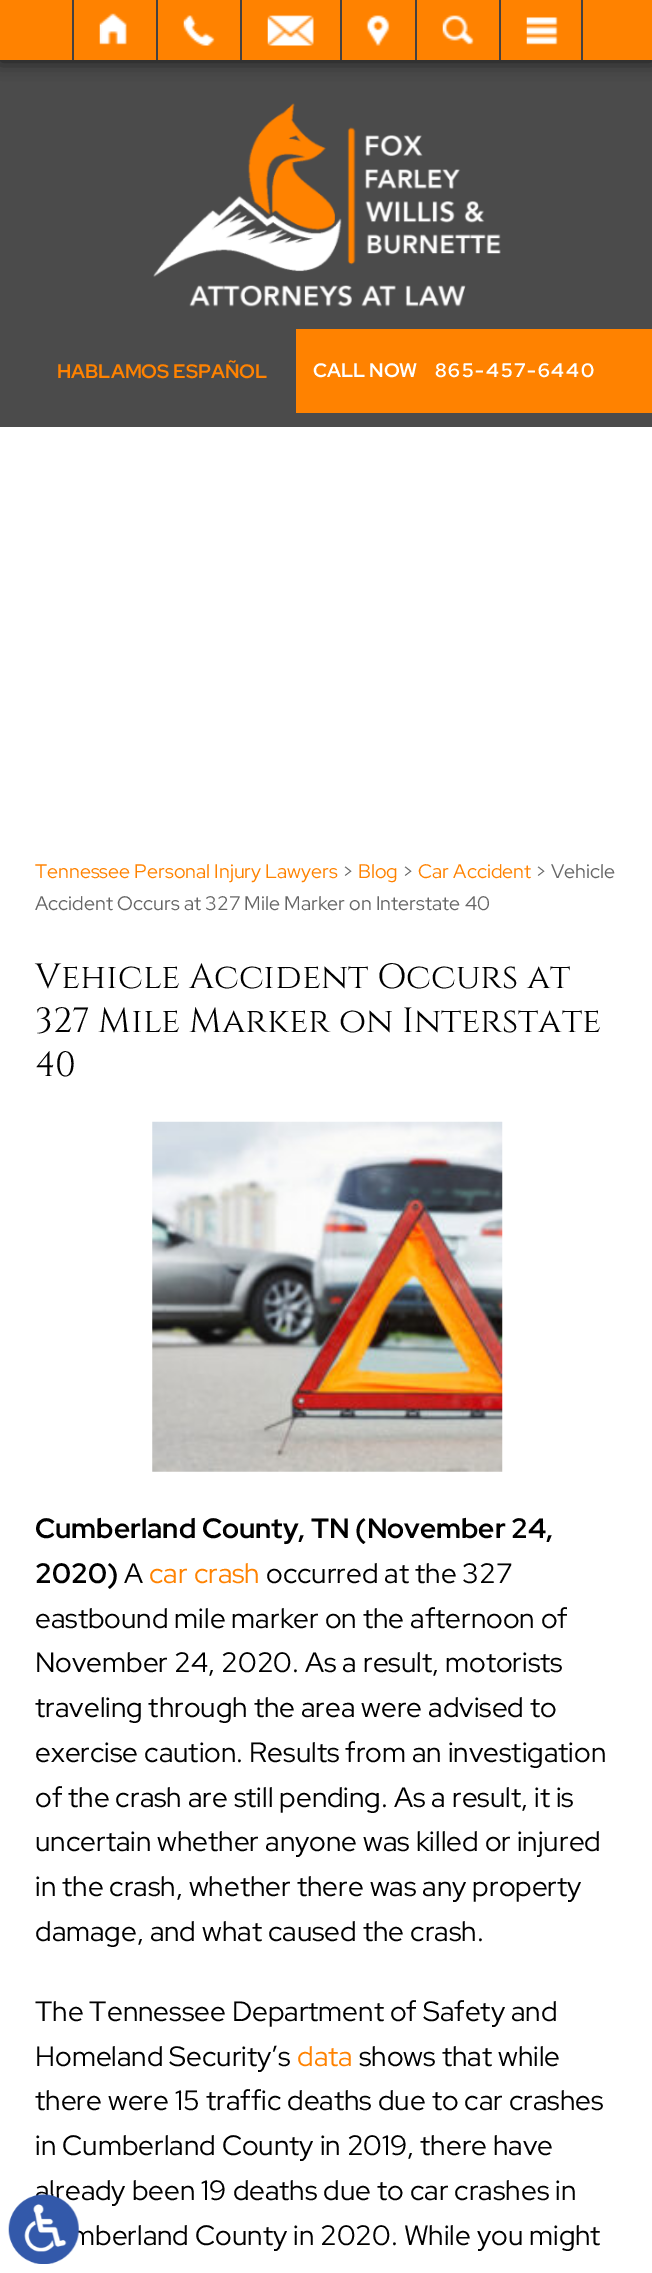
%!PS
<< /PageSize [652 2273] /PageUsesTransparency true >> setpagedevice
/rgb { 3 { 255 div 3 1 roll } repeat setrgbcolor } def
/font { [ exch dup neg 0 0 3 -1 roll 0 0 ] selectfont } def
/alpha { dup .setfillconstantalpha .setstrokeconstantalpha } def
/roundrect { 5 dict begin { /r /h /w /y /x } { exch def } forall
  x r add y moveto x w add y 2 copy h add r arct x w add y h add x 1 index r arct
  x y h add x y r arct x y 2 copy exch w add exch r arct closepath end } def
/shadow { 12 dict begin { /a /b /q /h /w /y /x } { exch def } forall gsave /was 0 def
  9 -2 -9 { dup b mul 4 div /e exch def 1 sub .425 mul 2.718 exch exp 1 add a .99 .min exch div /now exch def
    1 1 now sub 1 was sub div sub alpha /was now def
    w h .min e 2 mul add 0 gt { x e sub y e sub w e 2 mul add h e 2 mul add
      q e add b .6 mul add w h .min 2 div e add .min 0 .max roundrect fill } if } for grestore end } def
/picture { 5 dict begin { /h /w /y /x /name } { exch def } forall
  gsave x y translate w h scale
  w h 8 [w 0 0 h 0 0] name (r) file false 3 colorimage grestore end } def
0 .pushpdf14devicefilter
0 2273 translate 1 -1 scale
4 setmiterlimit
255 255 255 rgb
0 0 652 2273 rectfill
75 75 75 rgb
0 60 652 367 rectfill
0 0 0 rgb
0 2 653 59 0 9 0.7 shadow
[
  [0 0 652 60 255 130 0]
  [156 0 2 60 69 65 65]
  [72 0 2 60 69 65 65]
] { aload pop rgb rectfill } forall
(img/1.rgb) 99 13 28 32 picture
240 0 2 60 rectfill
(img/2.rgb) 183 15 32 31 picture
340 0 2 60 rectfill
(img/3.rgb) 267 15 47 31 picture
415 0 2 60 rectfill
(img/4.rgb) 366 15 24 31 picture
499 0 2 60 rectfill
(img/5.rgb) 442 15 32 30 picture
581 0 2 60 rectfill
(img/6.rgb) 526 17 32 28 picture
(img/7.rgb) 153 103 348 204 picture
255 130 0 rgb
296 329 356 84 rectfill
(img/8.rgb) 152 1121 351 351 picture
/RedHatDisplay-Bold 19.5 font
57 378 moveto (HABLAMOS ESPAÑOL) show
255 255 255 rgb
313 377 moveto (CALL NOW) show
435 377 moveto 1.75 0 (865-457-6440) ashow
/RedHatDisplay-Regular 19.6 font
255 130 0 rgb
35 878 moveto (Tennessee Personal Injury Lawyers) show
102 102 102 rgb
342 878 moveto (>) show
255 130 0 rgb
358 878 moveto (Blog) show
102 102 102 rgb
402 878 moveto (>) show
255 130 0 rgb
418 878 moveto (Car Accident) show
102 102 102 rgb
535 878 moveto (> Vehicle) show
35 910 moveto (Accident Occurs at 327 Mile Marker on Interstate 40) show
/Cinzel-Regular 35 font
0 0 0 rgb
[
  [(Vehicle Accident Occurs at) 35 988]
  [(327 Mile Marker on Interstate) 35 1032]
  [(40) 35 1076]
] { aload pop moveto show } forall
/RedHatDisplay-Bold 28 font
35 1538 moveto (Cumberland County, TN \(November 24,) show
35 1583 moveto (2020\)) show
/RedHatDisplay-Regular 28 font
124 1583 moveto (A) show
255 130 0 rgb
149 1583 moveto (car crash) show
0 0 0 rgb
[
  [(occurred at the 327) 266 1583]
  [(eastbound mile marker on the afternoon of) 35 1628]
  [(November 24, 2020. As a result, motorists) 35 1672]
  [(traveling through the area were advised to) 35 1717]
  [(exercise caution. Results from an investigation) 35 1762]
  [(of the crash are still pending. As a result, it is) 35 1807]
  [(uncertain whether anyone was killed or injured) 35 1851]
  [(in the crash, whether there was any property) 35 1896]
  [(damage, and what caused the crash.) 35 1941]
  [(The Tennessee Department of Safety and) 35 2021]
  [(Homeland Security’s) 35 2066]
] { aload pop moveto show } forall
255 130 0 rgb
297 2066 moveto (data) show
0 0 0 rgb
[
  [(shows that while) 359 2066]
  [(there were 15 traffic deaths due to car crashes) 35 2110]
  [(in Cumberland County in 2019, there have) 35 2155]
  [(already been 19 deaths due to car crashes in) 35 2200]
  [(mberland County in 2020. While you might) 71 2245]
] { aload pop moveto show } forall
(img/9.rgb) 8 2194 71 70 picture
.poppdf14devicefilter showpage
